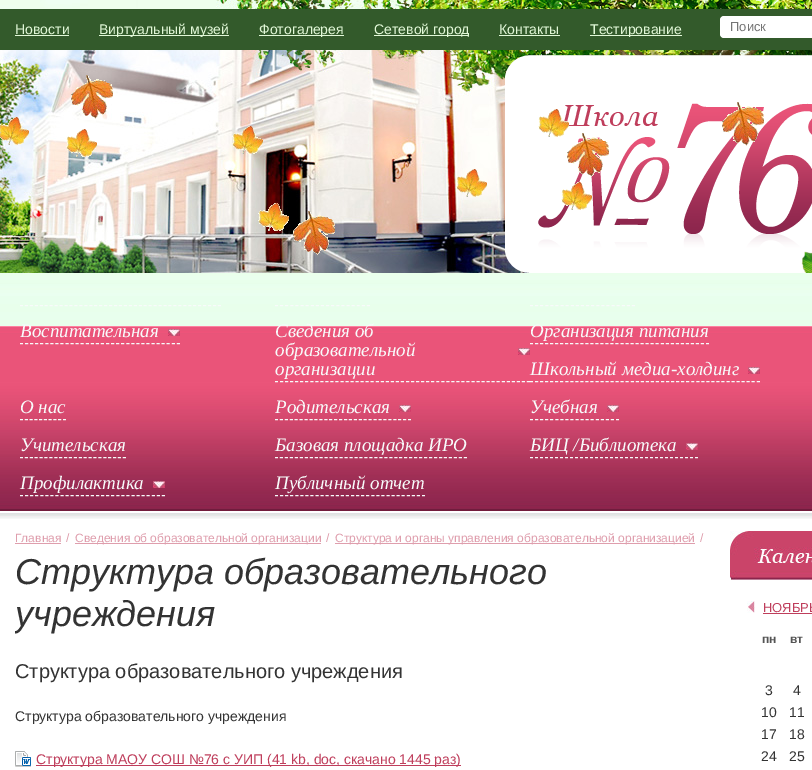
%!PS
<< /PageSize [812 770] >> setpagedevice
/rgb { 3 { 255 div 3 1 roll } repeat setrgbcolor } def
/font { [ exch dup neg 0 0 3 -1 roll 0 0 ] selectfont } def
/roundrect { 5 dict begin { /r /h /w /y /x } { exch def } forall
  x r add y moveto x w add y 2 copy h add r arct x w add y h add x 1 index r arct
  x y h add x y r arct x y 2 copy exch w add exch r arct closepath end } def
/picture { 5 dict begin { /h /w /y /x /name } { exch def } forall
  gsave x y translate w h scale
  w h 8 [w 0 0 h 0 0] name (r) file false 3 colorimage grestore end } def
0 770 translate 1 -1 scale
4 setmiterlimit
255 255 255 rgb
0 0 812 770 rectfill
(img/1.rgb) 0 273 812 53 picture
(img/2.rgb) 0 0 812 273 picture
[
  [0 9 812 41 51 90 43]
  [15 35 54 1 226 248 216]
  [99 35 130 1 226 248 216]
  [259 35 85 1 226 248 216]
  [374 35 95 1 226 248 216]
  [499 35 61 1 226 248 216]
  [590 35 92 1 226 248 216]
] { aload pop rgb rectfill } forall
255 255 255 rgb
720 16 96 22 4 roundrect fill
(img/3.rgb) 71 75 42 44 picture
(img/4.rgb) 505 55 307 218 picture
(img/5.rgb) 0 117 29 28 picture
(img/6.rgb) 66 129 31 28 picture
(img/7.rgb) 232 126 31 28 picture
(img/9.rgb) 567 133 42 44 picture
(img/8.rgb) 538 109 31 28 picture
(img/10.rgb) 722 102 42 44 picture
(img/11.rgb) 456 169 31 28 picture
(img/12.rgb) 561 182 31 28 picture
(img/13.rgb) 258 203 31 28 picture
(img/14.rgb) 293 211 42 44 picture
(img/15.rgb) 0 326 812 193 picture
248 251 251 rgb
[3 1.95] 0 setdash
20 305.5 moveto 221 305.5 lineto stroke
[3 2.11] 0 setdash
275 305.5 moveto 370 305.5 lineto stroke
[3 2.1] 0 setdash
530 305.5 moveto 635 305.5 lineto stroke
(img/16.rgb) 168 329 12 7 picture
[3 2.06] 0 setdash
20 343.5 moveto 180 343.5 lineto stroke
(img/16.rgb) 518 348 12 7 picture
[3 2.04] 0 setdash
275 381.5 moveto 530 381.5 lineto stroke
[3 2.03] 0 setdash
530 343.5 moveto 709 343.5 lineto stroke
(img/16.rgb) 748 367 12 7 picture
[3 2.04] 0 setdash
530 381.5 moveto 760 381.5 lineto stroke
[3 1.78] 0 setdash
20 419.5 moveto 66 419.5 lineto stroke
(img/16.rgb) 399 405 12 7 picture
[3 1.93] 0 setdash
275 419.5 moveto 411 419.5 lineto stroke
(img/16.rgb) 607 405 12 7 picture
[3 2.06] 0 setdash
530 419.5 moveto 619 419.5 lineto stroke
[3 1.9] 0 setdash
20 457.5 moveto 126 457.5 lineto stroke
[3 1.97] 0 setdash
275 457.5 moveto 467 457.5 lineto stroke
(img/16.rgb) 686 443 12 7 picture
[3 2] 0 setdash
530 457.5 moveto 698 457.5 lineto stroke
(img/16.rgb) 153 481 12 7 picture
[3 2.07] 0 setdash
20 495.5 moveto 165 495.5 lineto stroke
275 495.5 moveto 425 495.5 lineto stroke
[
  [15 543 46 1 223 158 173]
  [75 543 246 1 223 158 173]
  [335 543 360 1 223 158 173]
] { aload pop rgb rectfill } forall
(img/17.rgb) 15 751 16 16 picture
191 62 92 rgb
36 765 425 1 rectfill
(img/18.rgb) 730 531 82 49 picture
(img/19.rgb) 747 601 8 12 picture
763 613 49 1 rectfill
/LiberationSans-Regular 14 font
226 248 216 rgb
[
  [(Новости) 15 34]
  [(Виртуальный музей) 99 34]
  [(Фотогалерея) 259 34]
  [(Сетевой город) 374 34]
  [(Контакты) 499 34]
  [(Тестирование) 590 34]
] { aload pop moveto show } forall
/LiberationSans-Regular 13 font
117 117 117 rgb
730 31 moveto (Поиск) show
/LiberationSerif-Italic 19 font
248 251 251 rgb
[
  [(Воспитательная) 20 337]
  [(Сведения об) 275 337]
  [(образовательной) 275 356]
  [(организации) 275 375]
  [(Организация питания) 530 337]
  [(Школьный медиа-холдинг) 530 375]
  [(О нас) 20 413]
  [(Родительская) 275 413]
  [(Учебная) 530 413]
  [(Учительская) 20 451]
  [(Базовая площадка ИРО) 275 451]
  [(БИЦ /Библиотека) 530 451]
  [(Профилактика) 20 489]
  [(Публичный отчет) 275 489]
] { aload pop moveto show } forall
/LiberationSans-Regular 12 font
223 158 173 rgb
[
  [(Главная) 15 542]
  [(/) 66 542]
  [(Сведения об образовательной организации) 75 542]
  [(/) 326 542]
  [(Структура и органы управления образовательной организацией) 335 542]
  [(/) 700 542]
] { aload pop moveto show } forall
/LiberationSans-Italic 36 font
51 51 51 rgb
15 584 moveto (Структура образовательного) show
gsave
15 531 700 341 rectclip
15 626 moveto (учреждения) show
grestore
/LiberationSans-Regular 20 font
15 678 moveto (Структура образовательного учреждения) show
/LiberationSans-Regular 14 font
15 721 moveto (Структура образовательного учреждения) show
191 62 92 rgb
36 764 moveto (Структура МАОУ СОШ №76 с УИП \(41 kb, doc, скачано 1445 раз\)) show
/LiberationSans-Regular 13 font
763 612 moveto (НОЯБРЬ) show
/LiberationSans-Bold 12 font
85 85 85 rgb
762 643 moveto (пн) show
790 643 moveto (вт) show
/LiberationSans-Regular 14 font
51 51 51 rgb
[
  [(3) 765 695]
  [(4) 793 695]
  [(10) 761 717]
  [(11) 789 717]
  [(17) 761 739]
  [(18) 789 739]
  [(24) 761 761]
  [(25) 789 761]
] { aload pop moveto show } forall
showpage
